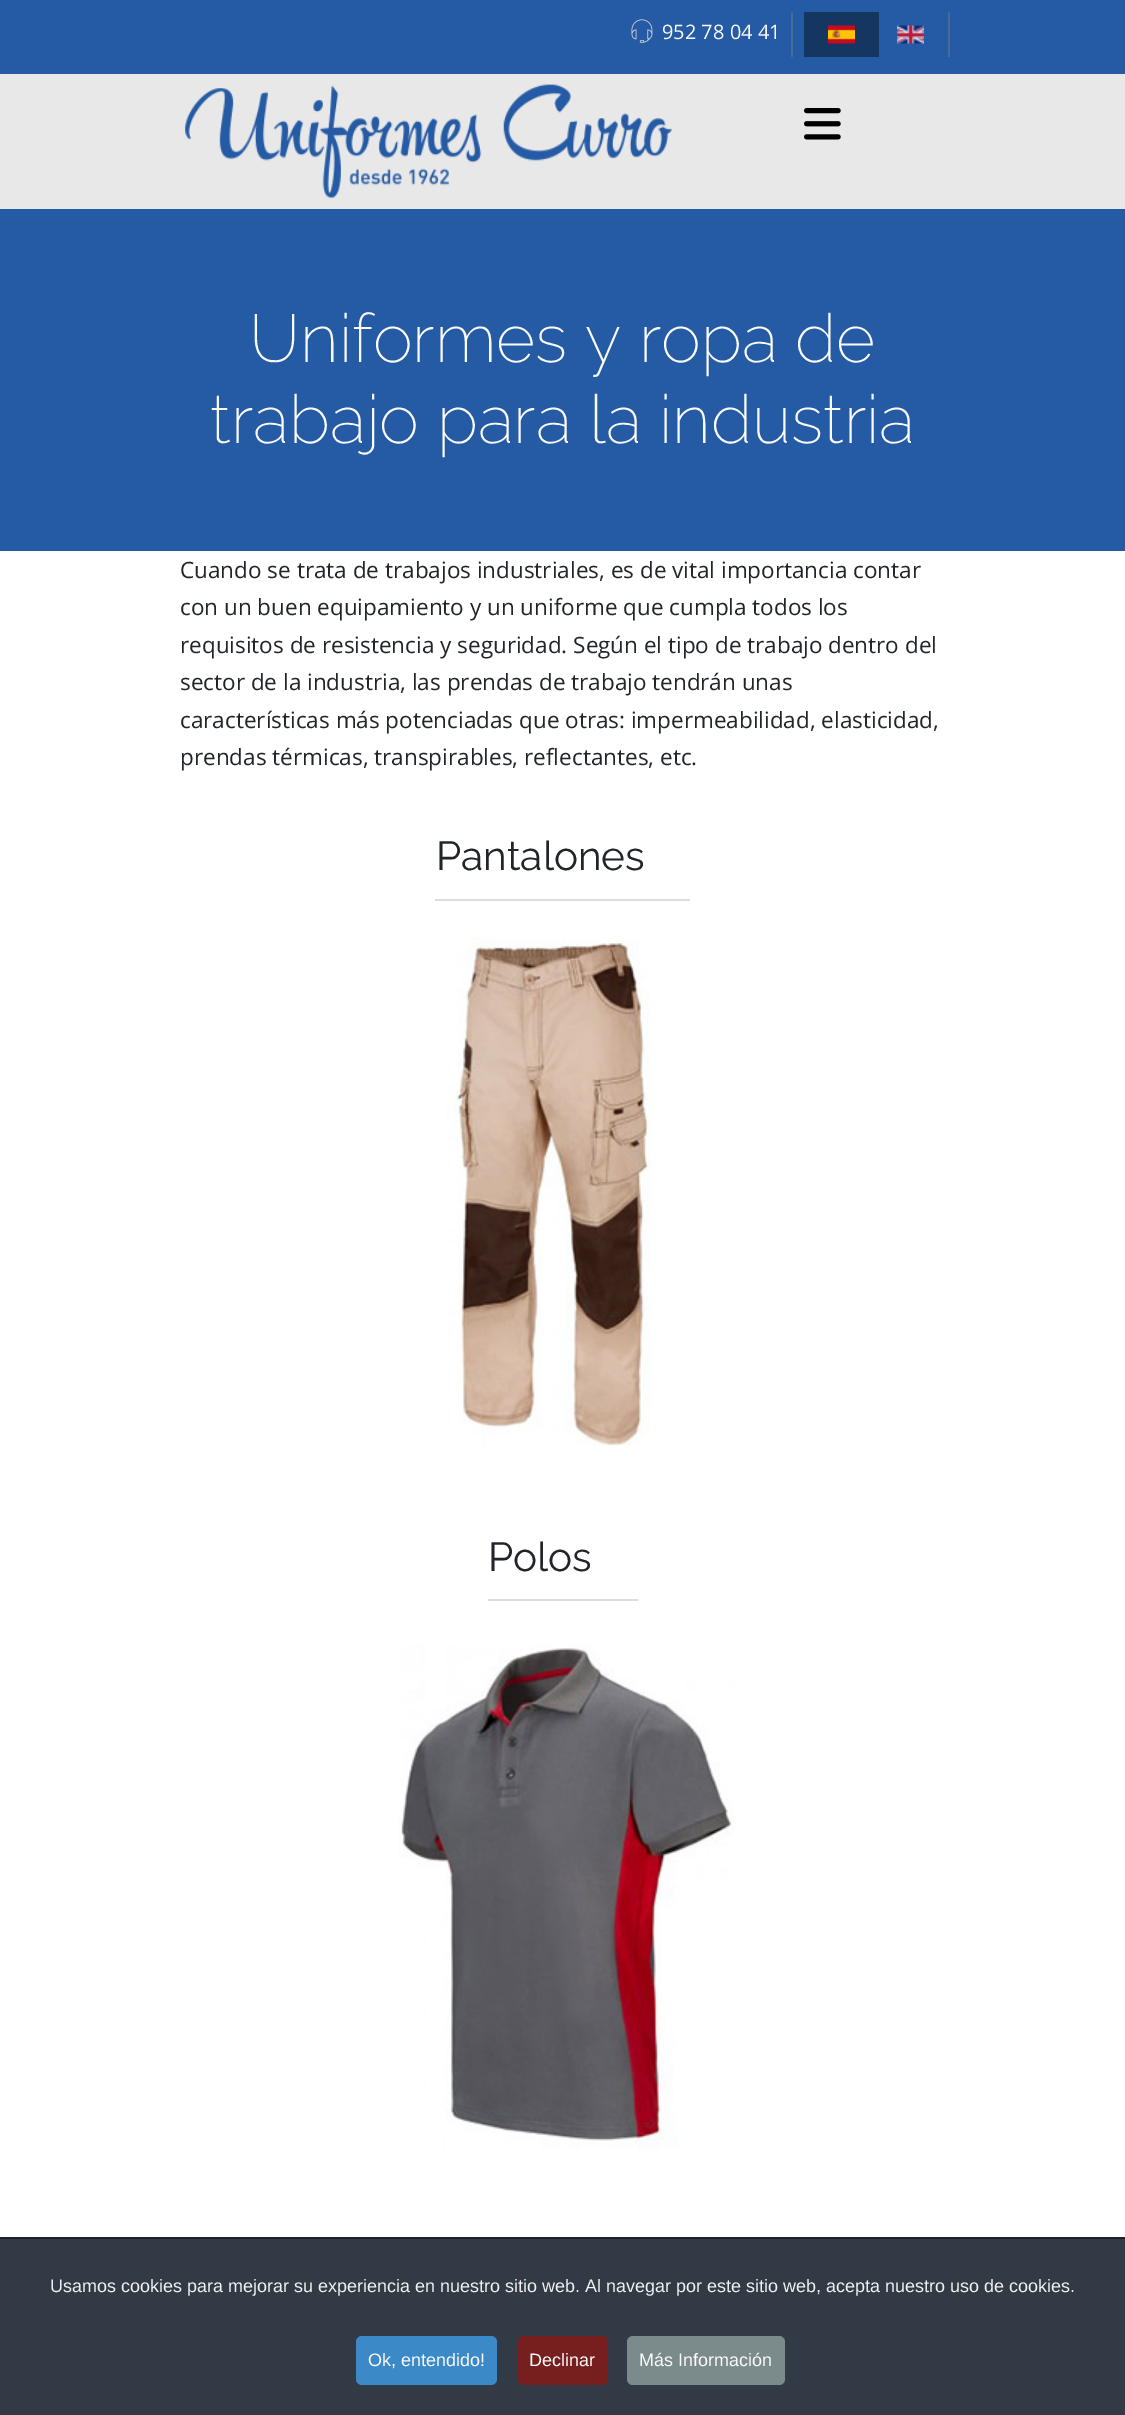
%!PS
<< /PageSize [1125 2415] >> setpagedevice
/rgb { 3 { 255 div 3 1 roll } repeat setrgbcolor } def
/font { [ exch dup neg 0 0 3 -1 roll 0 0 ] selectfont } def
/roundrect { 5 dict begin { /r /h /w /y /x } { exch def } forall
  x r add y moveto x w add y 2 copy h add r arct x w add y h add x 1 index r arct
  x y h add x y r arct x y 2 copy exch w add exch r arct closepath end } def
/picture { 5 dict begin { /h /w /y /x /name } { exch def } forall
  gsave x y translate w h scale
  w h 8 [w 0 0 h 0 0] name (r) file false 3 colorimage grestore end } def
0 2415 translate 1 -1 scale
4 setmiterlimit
255 255 255 rgb
0 0 1125 2415 rectfill
37 90 164 rgb
0 0 1125 74 rectfill
(img/1.rgb) 631 19 22 24 picture
[
  [948 12 2 45 74 106 150]
  [791 12 2 45 74 106 150]
  [804 12 75 45 22 54 98]
] { aload pop rgb rectfill } forall
(img/2.rgb) 828 25 27 19 picture
(img/3.rgb) 897 25 27 19 picture
232 232 232 rgb
0 74 1125 135 rectfill
(img/4.rgb) 185 84 487 115 picture
(img/5.rgb) 804 108 37 32 picture
37 90 164 rgb
0 209 1125 342 rectfill
221 221 221 rgb
435 899 255 2 rectfill
(img/6.rgb) 446 937 206 509 picture
488 1599 150 2 rectfill
(img/7.rgb) 398 1644 336 506 picture
50 58 69 rgb
0 2239 1125 176 rectfill
32 34 38 rgb
0 2237 1125 2 rectfill
59 137 199 rgb
356 2336 141 49 6 roundrect fill
119 31 31 rgb
518 2336 90 49 6 roundrect fill
123 138 139 rgb
627 2336 158 49 6 roundrect fill
/OpenSans-Regular 20 font
250 250 250 rgb
662 39 moveto (952 78 04 41) show
/Raleway-ExtraLight 67.5 font
249 362 moveto (Uniformes y ropa de) show
210 443 moveto (trabajo para la industria) show
/OpenSans-Regular 22.5 font
33 37 41 rgb
[
  [(Cuando se trata de trabajos industriales, es de vital importancia contar) 180 578]
  [(con un buen equipamiento y un uniforme que cumpla todos los) 180 615]
  [(requisitos de resistencia y seguridad. Según el tipo de trabajo dentro del) 180 653]
  [(sector de la industria, las prendas de trabajo tendrán unas) 180 690]
  [(características más potenciadas que otras: impermeabilidad, elasticidad,) 180 728]
  [(prendas térmicas, transpirables, reflectantes, etc.) 180 765]
] { aload pop moveto show } forall
/Raleway-Regular 40.5 font
436 870 moveto (Pantalones) show
488 1571 moveto (Polos) show
/LiberationSans-Regular 18 font
241 241 243 rgb
50 2292 moveto (Usamos cookies para mejorar su experiencia en nuestro sitio web. Al navegar por este sitio web, acepta nuestro uso de cookies.) show
250 250 250 rgb
[
  [(Ok, entendido!) 368 2366]
  [(Declinar) 529 2366]
  [(Más Información) 639 2366]
] { aload pop moveto show } forall
showpage
